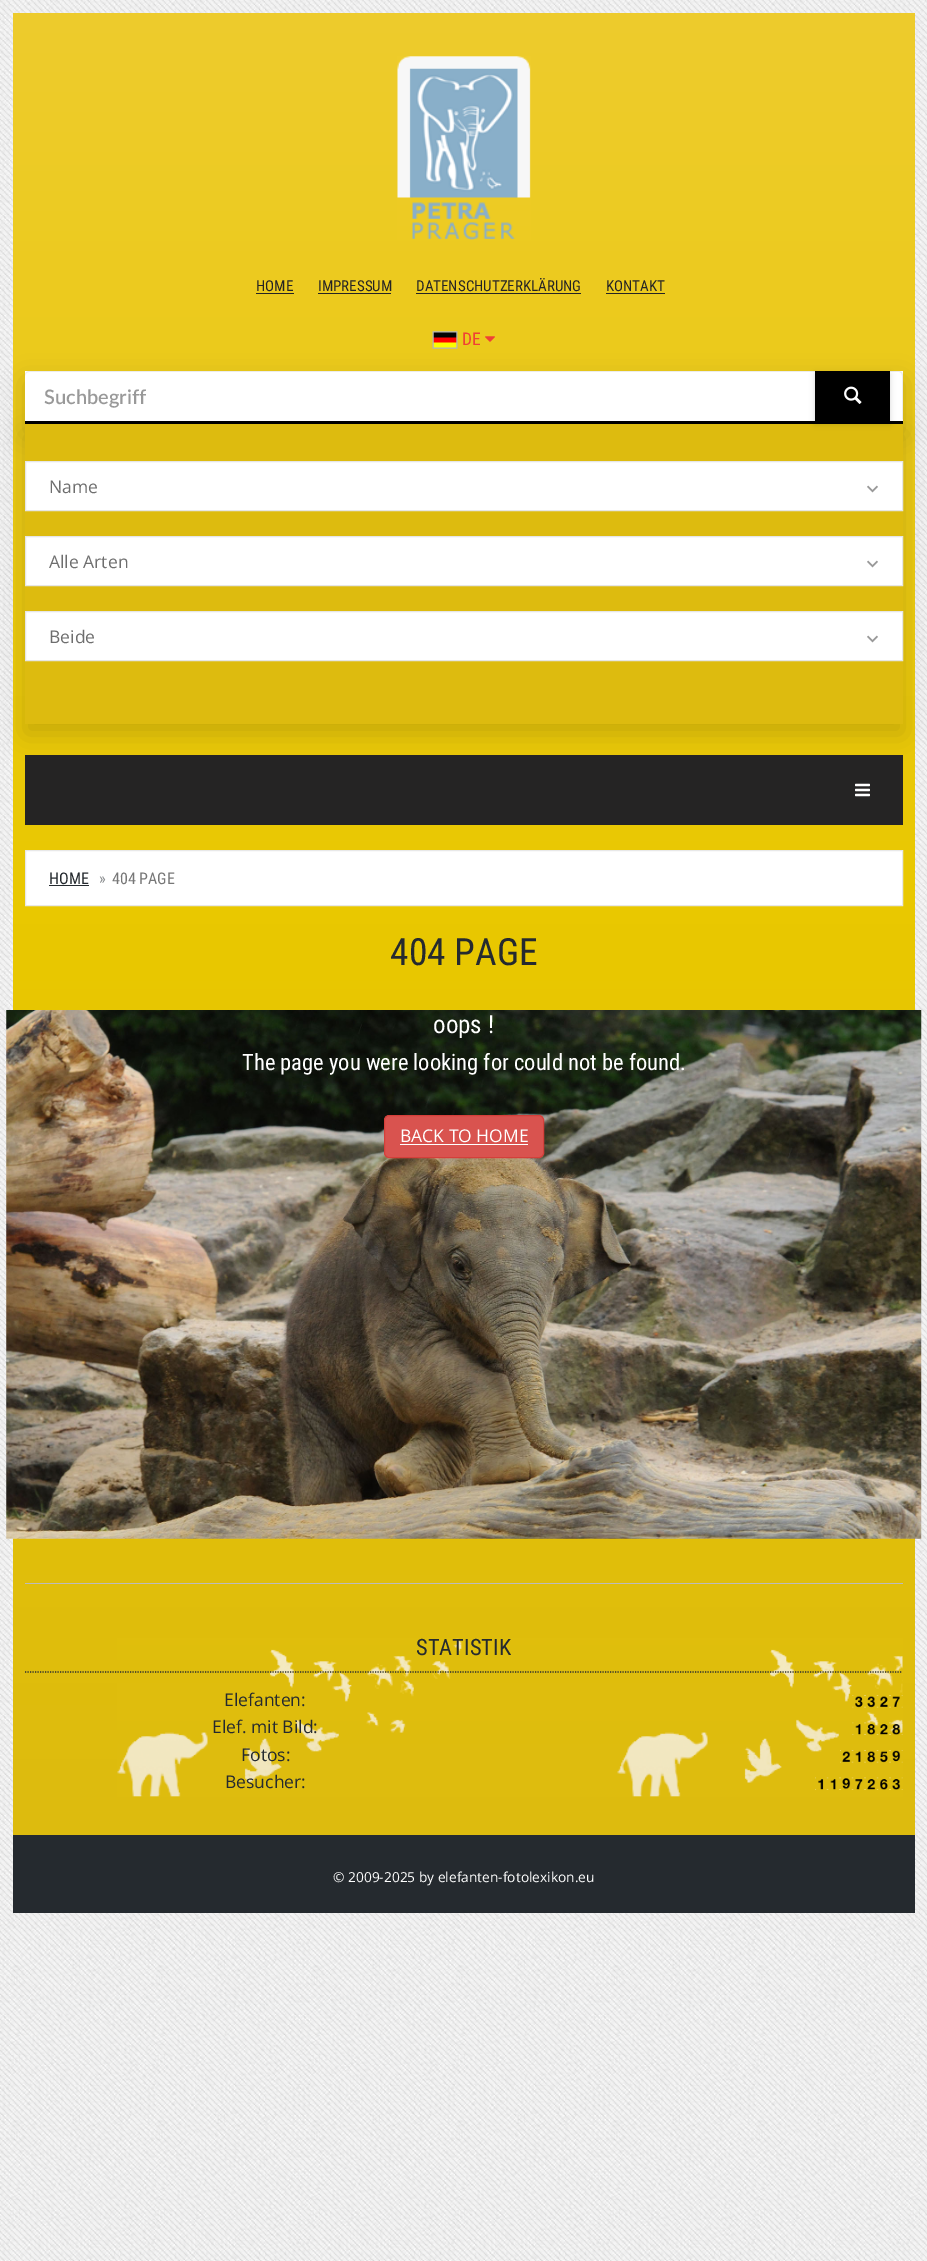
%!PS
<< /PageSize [927 2261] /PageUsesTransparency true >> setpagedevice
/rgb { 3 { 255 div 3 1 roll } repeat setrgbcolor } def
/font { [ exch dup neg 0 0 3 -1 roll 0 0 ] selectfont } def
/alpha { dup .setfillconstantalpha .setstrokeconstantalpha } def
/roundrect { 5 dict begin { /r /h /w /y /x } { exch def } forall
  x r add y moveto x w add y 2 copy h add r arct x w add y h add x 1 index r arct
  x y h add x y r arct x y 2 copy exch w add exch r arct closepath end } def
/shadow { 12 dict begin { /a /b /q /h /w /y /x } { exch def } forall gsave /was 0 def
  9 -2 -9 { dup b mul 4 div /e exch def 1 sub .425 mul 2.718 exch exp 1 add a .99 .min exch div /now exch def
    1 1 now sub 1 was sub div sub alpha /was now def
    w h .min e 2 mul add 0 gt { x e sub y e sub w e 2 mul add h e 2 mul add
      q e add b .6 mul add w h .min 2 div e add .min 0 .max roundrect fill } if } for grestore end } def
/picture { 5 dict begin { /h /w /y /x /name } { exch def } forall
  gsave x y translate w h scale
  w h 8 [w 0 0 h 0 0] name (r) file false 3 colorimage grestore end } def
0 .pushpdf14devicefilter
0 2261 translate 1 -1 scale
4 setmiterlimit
255 255 255 rgb
0 0 927 2261 rectfill
(img/1.rgb) 0 0 927 2261 picture
gsave 13 13 moveto 915 13 lineto 915 1835 lineto 13 1835 lineto closepath clip newpath
<< /ShadingType 2 /ColorSpace /DeviceRGB /Coords [464 13 464 1835] /Extend [true true] /Function << /FunctionType 3 /Domain [0 1] /Functions [<< /FunctionType 2 /Domain [0 1] /C0 [0.933 0.8 0.176] /C1 [0.914 0.784 0] /N 1 >> << /FunctionType 2 /Domain [0 1] /C0 [0.914 0.784 0] /C1 [0.867 0.733 0.059] /N 1 >>] /Bounds [0.5] /Encode [0 1 0 1] >> >> shfill grestore
(img/2.rgb) 397 56 134 184 picture
[
  [256 293 38 1 37 36 36]
  [318 293 73 1 37 36 36]
  [416 293 165 1 37 36 36]
  [606 293 59 1 37 36 36]
] { aload pop rgb rectfill } forall
(img/3.rgb) 432 331 26 18 picture
(img/4.rgb) 485 336 10 6 picture
0 0 0 rgb
25 381 878 53 0 12.5 0.15 shadow
25 421 878 3 rectfill
25 434 878 300 0 12.5 0.15 shadow
255 255 255 rgb
25 371 878 50 rectfill
236 236 236 rgb
29 372 moveto 899 372 lineto 901 372 902 374 902 376 curveto 902 420 lineto 903 419 903 418 903 417 curveto 903 375 lineto 903 373 901 371 899 371 curveto 29 371 lineto 27 371 25 373 25 375 curveto 25 376 lineto 25 374 27 372 29 372 curveto closepath fill
221 187 15 rgb
25 424 878 300 rectfill
0 0 0 rgb
815 374 75 50 0 3 0.15 shadow
815 371 75 50 rectfill
(img/5.rgb) 844 386 18 18 picture
255 255 255 rgb
25.5 461.5 moveto 902.5 461.5 lineto 902.5 510.5 lineto 25.5 510.5 lineto closepath gsave fill grestore
230 230 230 rgb
stroke
(img/6.rgb) 867 485 11 8 picture
255 255 255 rgb
25.5 536.5 moveto 902.5 536.5 lineto 902.5 585.5 lineto 25.5 585.5 lineto closepath gsave fill grestore
230 230 230 rgb
stroke
(img/6.rgb) 867 560 11 8 picture
255 255 255 rgb
25.5 611.5 moveto 902.5 611.5 lineto 902.5 660.5 lineto 25.5 660.5 lineto closepath gsave fill grestore
230 230 230 rgb
stroke
(img/6.rgb) 867 635 11 8 picture
37 36 36 rgb
25 755 878 70 rectfill
(img/7.rgb) 855 783 15 14 picture
255 255 255 rgb
25.5 850.5 moveto 902.5 850.5 lineto 902.5 905.5 lineto 25.5 905.5 lineto closepath gsave fill grestore
232 232 232 rgb
stroke
37 42 47 rgb
49 885 40 1 rectfill
(img/8.rgb) 6 1010 916 529 picture
217 83 79 rgb
384.5 1115.5 159 42 4.5 roundrect gsave fill grestore
212 63 58 rgb
stroke
255 255 255 rgb
400 1144 128 1 rectfill
(img/9.rgb) 117 1638 786 159 picture
188 188 188 rgb
25 1583 878 1 rectfill
37 42 47 rgb
1.2 setlinewidth
[1.25 1.25] 0 setdash
25 1672 moveto 902.5 1672 lineto stroke
(img/10.rgb) 852 1695 13 13 picture
(img/11.rgb) 865 1695 13 13 picture
(img/12.rgb) 877 1695 13 13 picture
(img/13.rgb) 890 1695 13 13 picture
(img/14.rgb) 852 1722 13 13 picture
(img/15.rgb) 865 1722 13 13 picture
(img/16.rgb) 877 1722 13 13 picture
(img/17.rgb) 890 1722 13 13 picture
(img/18.rgb) 840 1750 13 13 picture
(img/19.rgb) 852 1750 13 13 picture
(img/20.rgb) 865 1750 13 13 picture
(img/21.rgb) 877 1750 13 13 picture
(img/22.rgb) 890 1750 13 13 picture
(img/23.rgb) 815 1777 13 13 picture
(img/24.rgb) 827 1777 13 13 picture
(img/25.rgb) 840 1777 13 13 picture
(img/26.rgb) 852 1777 13 13 picture
(img/27.rgb) 865 1777 13 13 picture
(img/28.rgb) 877 1777 13 13 picture
(img/29.rgb) 890 1777 13 13 picture
13 1835 902 78 rectfill
/RobotoCondensed-Regular 15 font
37 36 36 rgb
[
  [(HOME) 256 291]
  [(IMPRESSUM) 318 291]
  [(DATENSCHUTZERKLÄRUNG) 416 291]
  [(KONTAKT) 606 291]
] { aload pop moveto show } forall
/RobotoCondensed-Regular 17.5 font
239 65 53 rgb
462 345 moveto (DE) show
/Lato-SemiBold 20 font
153 153 153 rgb
44 404 moveto (Suchbegriff) show
/OpenSans-Regular 17.5 font
110 110 110 rgb
[
  [(Name) 49 493]
  [(Alle Arten) 49 568]
  [(Beide) 49 643]
] { aload pop moveto show } forall
/RobotoCondensed-Regular 16 font
37 42 47 rgb
49 884 moveto (HOME) show
135 138 140 rgb
99 884 moveto (») show
119 119 119 rgb
112 884 moveto (404 PAGE) show
/RobotoCondensed-Regular 37.5 font
37 42 47 rgb
390 965 moveto (404 PAGE) show
/RobotoCondensed-Regular 25 font
255 255 255 rgb
433 1033 moveto (oops !) show
/RobotoCondensed-Regular 22.5 font
242 1070 moveto (The page you were looking for could not be found.) show
/OpenSans-Regular 17.5 font
400 1142 moveto (BACK TO HOME) show
/RobotoCondensed-Regular 22.5 font
37 42 47 rgb
416 1655 moveto (STATISTIK) show
/OpenSans-Regular 17.5 font
[
  [(Elefanten:) 224 1706]
  [(Elef. mit Bild:) 212 1733]
  [(Fotos:) 241 1761]
  [(Besucher:) 225 1788]
] { aload pop moveto show } forall
/OpenSans-Regular 13.75 font
255 255 255 rgb
333 1882 moveto (© 2009-2025 by elefanten-fotolexikon.eu) show
.poppdf14devicefilter showpage
